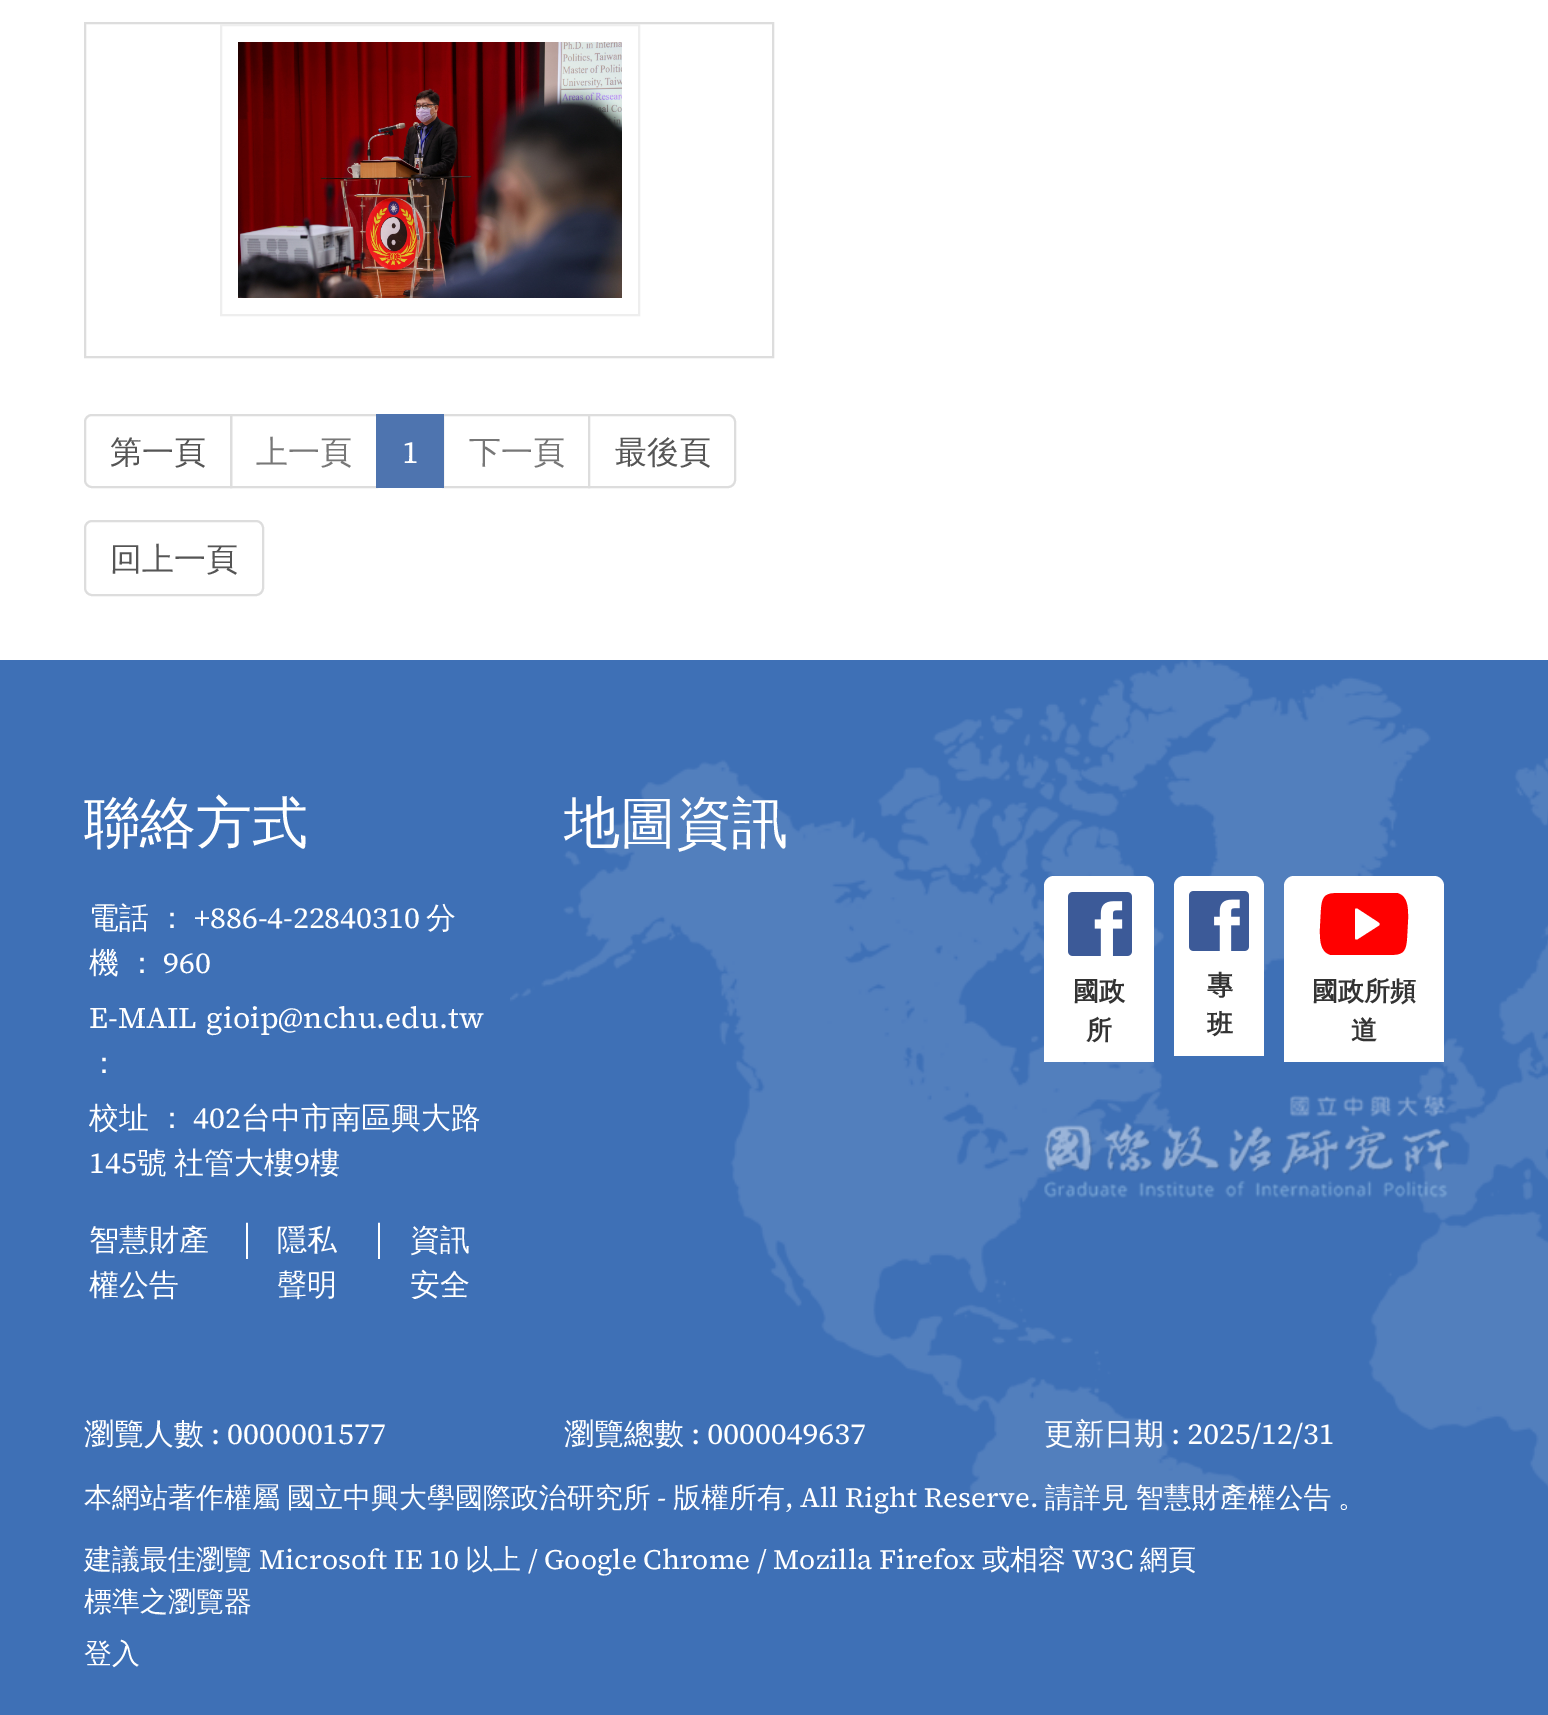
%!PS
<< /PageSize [1548 1715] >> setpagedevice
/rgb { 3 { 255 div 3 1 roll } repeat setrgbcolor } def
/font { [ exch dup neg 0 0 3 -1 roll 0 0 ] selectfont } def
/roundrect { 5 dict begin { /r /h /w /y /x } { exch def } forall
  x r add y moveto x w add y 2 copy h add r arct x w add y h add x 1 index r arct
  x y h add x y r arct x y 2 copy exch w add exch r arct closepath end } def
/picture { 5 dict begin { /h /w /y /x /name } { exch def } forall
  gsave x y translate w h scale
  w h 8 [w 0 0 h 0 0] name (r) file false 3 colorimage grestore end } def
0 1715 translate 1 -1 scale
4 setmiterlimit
255 255 255 rgb
0 0 1548 1715 rectfill
221 221 221 rgb
2 setlinewidth
85 23 688 334 rectstroke
238 238 238 rgb
221 25 418 290 rectstroke
(img/1.rgb) 238 42 384 256 picture
221 221 221 rgb
92 415 moveto 231 415 lineto 231 487 lineto 92 487 lineto 88 487 85 484 85 480 curveto 85 422 lineto 85 418 88 415 92 415 curveto closepath stroke
231 415 146 72 rectstroke
443 415 146 72 rectstroke
78 116 175 rgb
376 414 68 74 rectfill
255 255 255 rgb
589 415 moveto 728 415 lineto 732 415 735 418 735 422 curveto 735 480 lineto 735 484 732 487 728 487 curveto 589 487 lineto closepath gsave fill grestore
221 221 221 rgb
stroke
85 521 178 74 7 roundrect stroke
62 112 182 rgb
0 660 1548 1055 rectfill
/WenQuanYiZenHei-Medium 32 font
85 85 85 rgb
110 463 moveto (第一頁) show
119 119 119 rgb
256 463 moveto (上一頁) show
/SourceSerif4-Regular 32 font
255 255 255 rgb
402 463 moveto (1) show
/WenQuanYiZenHei-Medium 32 font
119 119 119 rgb
469 463 moveto (下一頁) show
85 85 85 rgb
615 463 moveto (最後頁) show
110 570 moveto (回上一頁) show
/WenQuanYiZenHei-Medium 56 font
255 255 255 rgb
84 842 moveto (聯絡方式) show
/WenQuanYiZenHei-Medium 30 font
89 928 moveto -1 0 32 (電話 ：) widthshow
/SourceSerif4-Regular 30 font
194 928 moveto (+886-4-22840310) show
/WenQuanYiZenHei-Medium 30 font
426 928 moveto (分) show
89 973 moveto -1 0 32 (機 ：) widthshow
/SourceSerif4-Regular 30 font
[
  [(960) 163 973]
  [(E-MAIL) 89 1028]
  [(gioip@nchu.edu.tw) 206 1028]
] { aload pop moveto show } forall
/WenQuanYiZenHei-Medium 30 font
89 1073 moveto (：) show
89 1128 moveto -1 0 32 (校址 ：) widthshow
/SourceSerif4-Regular 30 font
193 1128 moveto (402) show
/WenQuanYiZenHei-Medium 30 font
241 1128 moveto (台中市南區興大路) show
/SourceSerif4-Regular 30 font
89 1173 moveto (145) show
/WenQuanYiZenHei-Medium 30 font
137 1173 moveto -2 0 32 (號 社管大樓) widthshow
/SourceSerif4-Regular 30 font
294 1173 moveto (9) show
/WenQuanYiZenHei-Medium 30 font
[
  [(樓) 310 1173]
  [(智慧財產) 89 1250]
  [(權公告) 89 1295]
] { aload pop moveto show } forall
/LiberationSans-Regular 30 font
239 1250 moveto (│) show
/WenQuanYiZenHei-Medium 30 font
277 1250 moveto (隱私) show
277 1295 moveto (聲明) show
/LiberationSans-Regular 30 font
371 1250 moveto (│) show
/WenQuanYiZenHei-Medium 30 font
[
  [(資訊) 410 1250]
  [(安全) 410 1295]
  [(瀏覽人數) 84 1444]
] { aload pop moveto show } forall
/SourceSerif4-Regular 30 font
211 1444 moveto (: 0000001577) show
/WenQuanYiZenHei-Medium 30 font
564 1444 moveto (瀏覽總數) show
/SourceSerif4-Regular 30 font
691 1444 moveto (: 0000049637) show
/WenQuanYiZenHei-Medium 30 font
1044 1444 moveto (更新日期) show
/SourceSerif4-Regular 30 font
1171 1444 moveto (: 2025/12/31) show
/WenQuanYiZenHei-Medium 28 font
84 1507 moveto (本網站著作權屬) show
287 1507 moveto (國立中興大學國際政治研究所) show
/SourceSerif4-Regular 28 font
657 1507 moveto (-) show
/WenQuanYiZenHei-Medium 28 font
673 1507 moveto (版權所有) show
/SourceSerif4-Regular 28 font
785 1507 moveto (, All Right Reserve.) show
/WenQuanYiZenHei-Medium 28 font
1045 1507 moveto (請詳見) show
1136 1507 moveto (智慧財產權公告) show
(img/2.rgb) 510 660 1038 840 picture
1284 876 160 186 10 roundrect fill
/WenQuanYiZenHei-Bold 26 font
51 51 51 rgb
1351 1039 moveto (道) show
1312 1000 moveto (國政所頻) show
255 255 255 rgb
1284 1052 160 10 rectfill
255 0 0 rgb
1408 920 moveto 1408 911 1409 896 1397 893 curveto 1344 893 lineto 1327 893 1322 893 1321 910 curveto 1320 928 lineto 1320 937 1319 952 1331 955 curveto 1384 955 lineto 1401 955 1406 955 1407 938 curveto closepath fill
255 255 255 rgb
1378.5 922.5 moveto 1357 908.5 lineto 1355.5 908.5 lineto 1355 910 lineto 1355 938 lineto 1355.5 939.5 lineto 1357 939.5 lineto 1376.5 927 lineto 1378.5 925.5 1381 925 1378.5 922.5 curveto closepath fill
1174 876 90 180 10 roundrect fill
51 51 51 rgb
1207 1033 moveto (班) show
1207 994 moveto (專) show
255 255 255 rgb
1174 1046 90 10 rectfill
(img/4.rgb) 1189 891 60 60 picture
1044 876 110 186 10 roundrect fill
51 51 51 rgb
1086 1039 moveto (所) show
1073 1000 moveto (國政) show
255 255 255 rgb
1044 1052 110 10 rectfill
(img/3.rgb) 1068 892 64 64 picture
(img/5.rgb) 1044 1095 407 103 picture
/WenQuanYiZenHei-Medium 56 font
564 842 moveto (地圖資訊) show
/WenQuanYiZenHei-Medium 28 font
1338 1507 moveto (。) show
84 1569 moveto (建議最佳瀏覽) show
/SourceSerif4-Regular 28 font
259 1569 moveto (Microsoft IE 10) show
/WenQuanYiZenHei-Medium 28 font
465 1569 moveto (以上) show
/SourceSerif4-Regular 28 font
528 1569 moveto (/ Google Chrome / Mozilla Firefox) show
/WenQuanYiZenHei-Medium 28 font
982 1569 moveto (或相容) show
/SourceSerif4-Regular 28 font
1072 1569 moveto (W3C) show
/WenQuanYiZenHei-Medium 28 font
[
  [(網頁) 1140 1569]
  [(標準之瀏覽器) 84 1611]
  [(登入) 84 1663]
] { aload pop moveto show } forall
showpage
